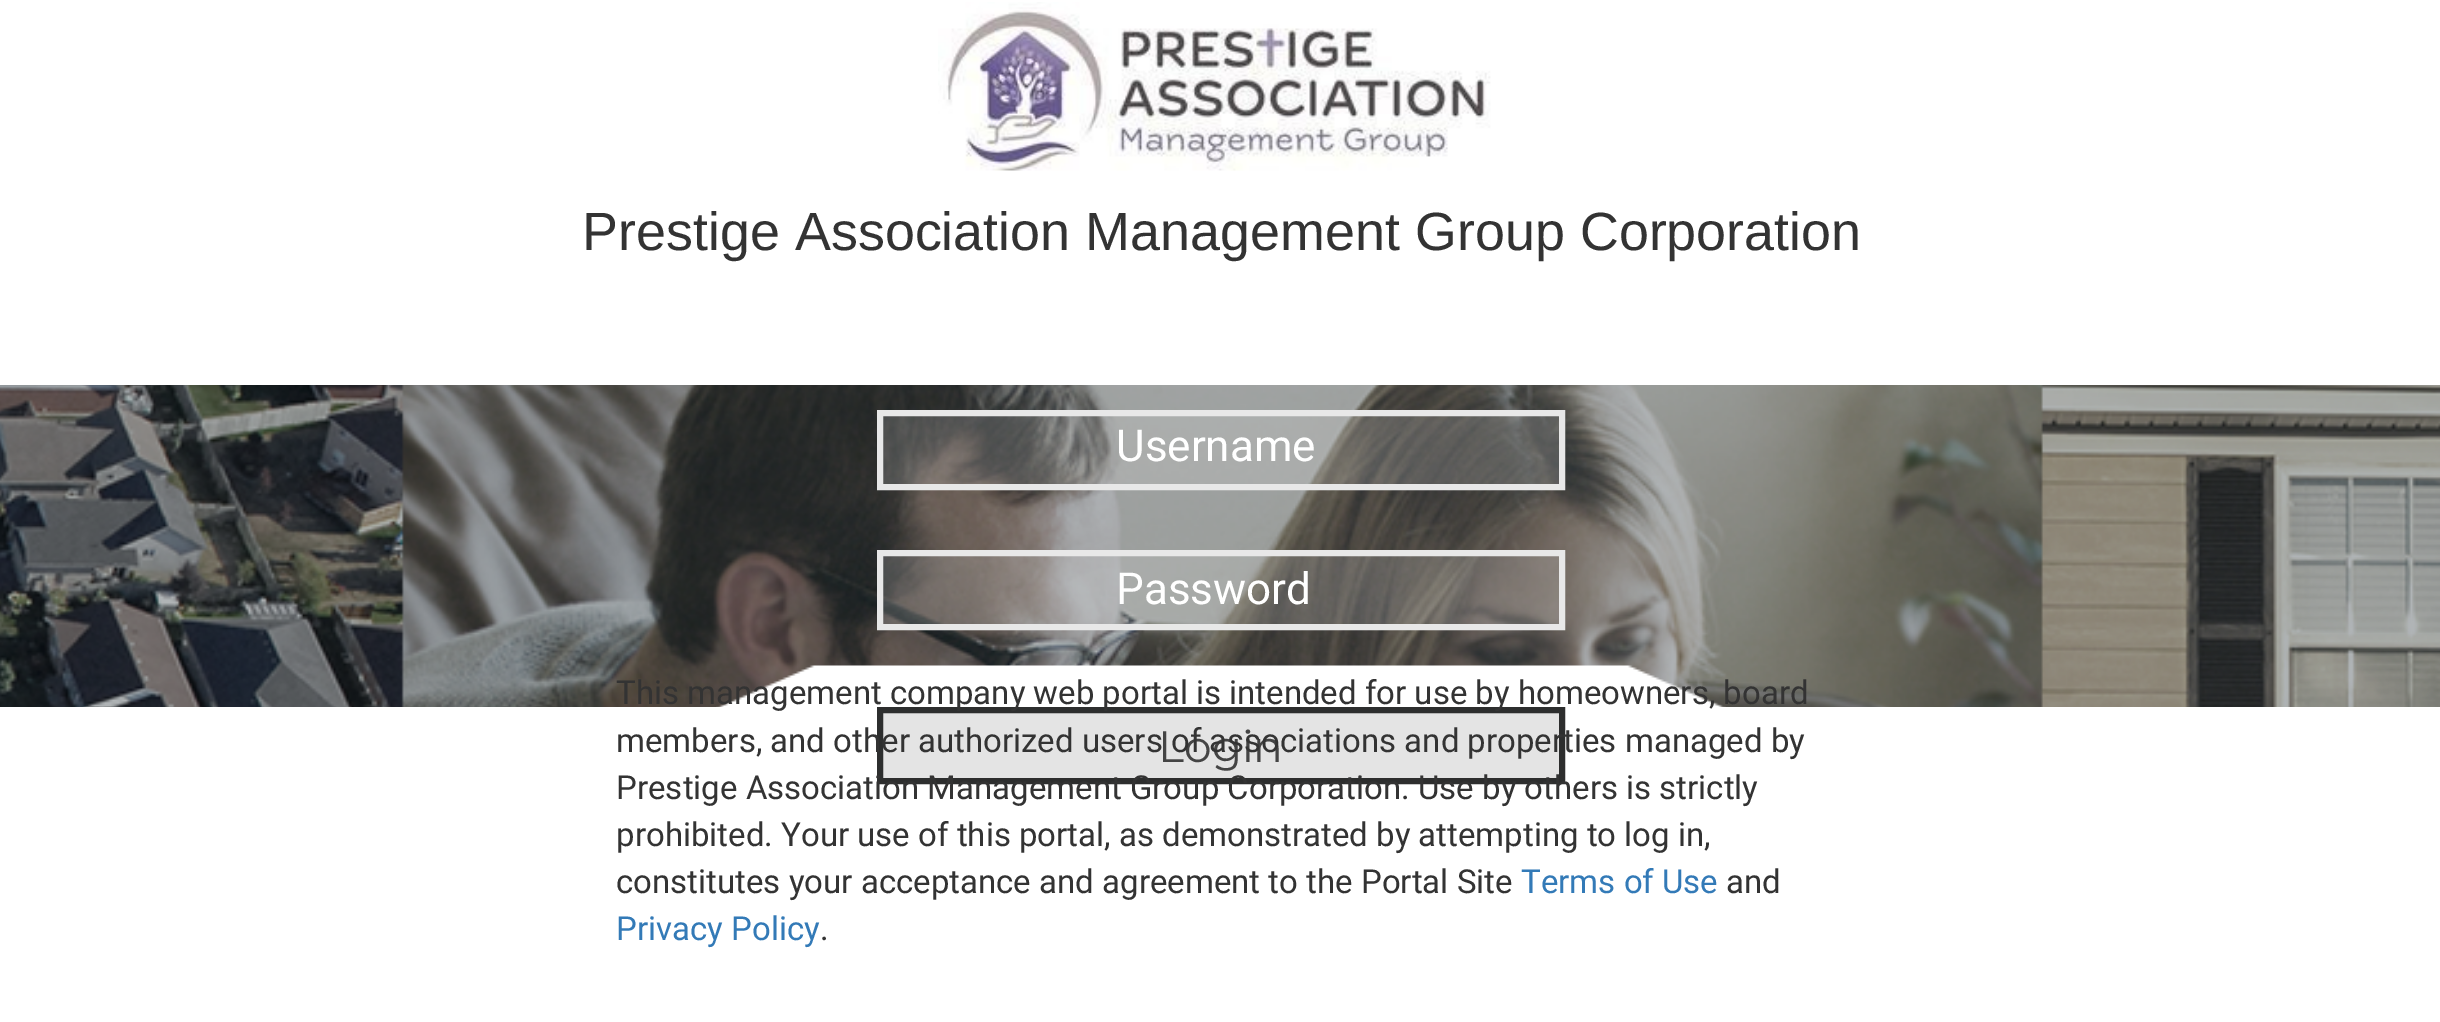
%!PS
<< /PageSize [2440 1022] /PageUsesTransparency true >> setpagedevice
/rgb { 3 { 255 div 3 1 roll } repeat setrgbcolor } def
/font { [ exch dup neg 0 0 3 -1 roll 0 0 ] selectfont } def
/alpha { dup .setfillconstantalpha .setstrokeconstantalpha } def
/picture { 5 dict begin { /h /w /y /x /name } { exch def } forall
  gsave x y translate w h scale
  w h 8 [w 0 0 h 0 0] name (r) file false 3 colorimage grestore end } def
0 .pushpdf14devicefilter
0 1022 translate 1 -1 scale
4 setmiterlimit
255 255 255 rgb
0 0 2440 1022 rectfill
(img/1.rgb) 938 2 553 169 picture
(img/2.rgb) 0 385 2440 322 picture
0.2 alpha
221 221 221 rgb
880 413 moveto 1562 413 lineto 1562 487 lineto 880 487 lineto closepath fill
1 alpha
232 232 232 rgb
6 setlinewidth
880 413 moveto 1562 413 lineto 1562 487 lineto 880 487 lineto closepath stroke
0.2 alpha
221 221 221 rgb
880 553 moveto 1562 553 lineto 1562 627 lineto 880 627 lineto closepath fill
1 alpha
232 232 232 rgb
880 553 moveto 1562 553 lineto 1562 627 lineto 880 627 lineto closepath stroke
228 228 228 rgb
880 710 moveto 1562 710 lineto 1562 781 lineto 880 781 lineto closepath gsave fill grestore
45 46 46 rgb
stroke
(img/3.rgb) 716 665 1010 42 picture
/LiberationSans-Regular 53.9 font
51 51 51 rgb
582 250 moveto (Prestige Association Management Group Corporation) show
/Roboto-Regular 44 font
255 255 255 rgb
1116 461 moveto (Username) show
1116 604 moveto (Password) show
/Montserrat-Regular 44 font
68 68 68 rgb
1158 762 moveto (Login) show
/Roboto-Regular 33 font
51 51 51 rgb
[
  [(This management company web portal is intended for use by homeowners, board) 616 704]
  [(members, and other authorized users of associations and properties managed by) 616 752]
  [(Prestige Association Management Group Corporation. Use by others is strictly) 616 799]
  [(prohibited. Your use of this portal, as demonstrated by attempting to log in,) 616 846]
  [(constitutes your acceptance and agreement to the Portal Site) 616 893]
] { aload pop moveto show } forall
51 122 183 rgb
1521 893 moveto (Terms of Use) show
51 51 51 rgb
1726 893 moveto (and) show
51 122 183 rgb
616 940 moveto (Privacy Policy) show
51 51 51 rgb
820 940 moveto (.) show
.poppdf14devicefilter showpage
